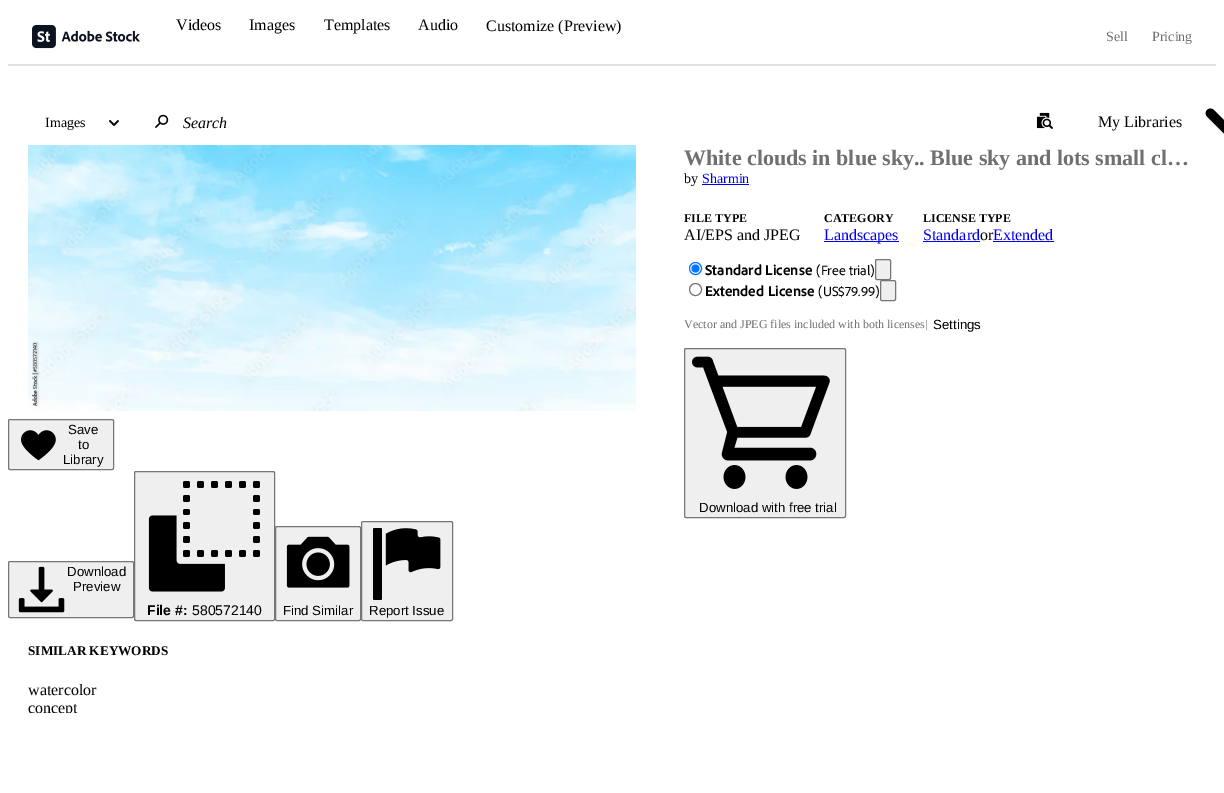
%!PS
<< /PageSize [1224 793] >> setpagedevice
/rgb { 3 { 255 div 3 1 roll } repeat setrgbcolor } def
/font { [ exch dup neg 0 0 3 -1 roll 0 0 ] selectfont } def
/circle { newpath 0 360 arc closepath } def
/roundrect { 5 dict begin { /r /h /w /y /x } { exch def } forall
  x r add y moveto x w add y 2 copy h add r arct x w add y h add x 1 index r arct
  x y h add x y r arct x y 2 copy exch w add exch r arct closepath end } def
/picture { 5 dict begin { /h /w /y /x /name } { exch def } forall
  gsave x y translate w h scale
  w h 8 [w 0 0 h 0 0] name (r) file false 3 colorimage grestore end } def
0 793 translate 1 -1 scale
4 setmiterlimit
255 255 255 rgb
0 0 1224 793 rectfill
225 225 225 rgb
8 64 1208 2 rectfill
(img/1.rgb) 32 25 108 24 picture
(img/2.rgb) 109 120 10 6 picture
(img/3.rgb) 155 114 14 14 picture
(img/4.rgb) 1036 112 17 17 picture
(img/5.rgb) 1205 108 19 26 picture
(img/6.rgb) 28 145 608 266 picture
239 239 239 rgb
8.5 419.5 105 50 1.5 roundrect gsave fill grestore
118 118 118 rgb
stroke
(img/7.rgb) 21 430 35 31 picture
239 239 239 rgb
8.5 561.5 125 56 1.5 roundrect gsave fill grestore
118 118 118 rgb
stroke
(img/8.rgb) 18 566 47 47 picture
239 239 239 rgb
134.5 471.5 140 149 1.5 roundrect gsave fill grestore
118 118 118 rgb
stroke
(img/9.rgb) 148 481 112 111 picture
239 239 239 rgb
275.5 526.5 85 94 1.5 roundrect gsave fill grestore
118 118 118 rgb
stroke
(img/10.rgb) 286 536 64 52 picture
239 239 239 rgb
361.5 521.5 91 99 1.5 roundrect gsave fill grestore
118 118 118 rgb
stroke
(img/11.rgb) 373 528 68 72 picture
[
  [702 184 47 1 0 0 238]
  [824 241 75 1 0 0 238]
  [923 241 57 1 0 0 238]
  [993 241 61 1 0 0 238]
] { aload pop rgb rectfill } forall
0 117 255 rgb
695.5 268.5 6 circle stroke
695.5 268.5 4 circle fill
239 239 239 rgb
875.5 259.5 15 20 1.5 roundrect gsave fill grestore
118 118 118 rgb
stroke
695.5 289.5 6 circle stroke
239 239 239 rgb
880.5 280.5 15 20 1.5 roundrect gsave fill grestore
118 118 118 rgb
stroke
239 239 239 rgb
684.5 348.5 161 169 1.5 roundrect gsave fill grestore
118 118 118 rgb
stroke
(img/12.rgb) 692 356 138 133 picture
/LiberationSerif-Regular 16 font
0 0 0 rgb
[
  [(Videos) 176 30]
  [(Images) 249 30]
  [(Templates) 324 30]
  [(Audio) 418 30]
  [(Customize \(Preview\)) 486 31]
] { aload pop moveto show } forall
/LiberationSerif-Regular 14 font
112 112 112 rgb
1106 41 moveto (Sell) show
1152 41 moveto (Pricing) show
0 0 0 rgb
45 127 moveto (Images) show
/LiberationSerif-Italic 16 font
183 128 moveto (Search) show
/LiberationSerif-Regular 16 font
1098 127 moveto (My Libraries) show
/LiberationSans-Regular 13.25 font
[
  [(Save) 68 434]
  [(to) 78 449]
  [(Library) 63 464]
  [(Download) 67 576]
  [(Preview) 73 591]
] { aload pop moveto show } forall
/LiberationSans-Bold 14 font
147 615 moveto (File #:) show
/LiberationSans-Regular 14 font
192 615 moveto (580572140) show
/LiberationSans-Regular 13.25 font
283 615 moveto (Find Similar) show
369 615 moveto (Report Issue) show
/LiberationSerif-Bold 22 font
112 112 112 rgb
684 165 moveto (White clouds in blue sky.. Blue sky and lots small cl…) show
/LiberationSerif-Regular 14 font
0 0 0 rgb
684 183 moveto (by) show
0 0 238 rgb
702 183 moveto (Sharmin) show
/LiberationSerif-Bold 12 font
0 0 0 rgb
684 222 moveto (FILE TYPE) show
/LiberationSerif-Regular 16 font
684 240 moveto (AI/EPS and JPEG) show
/LiberationSerif-Bold 12 font
824 222 moveto (CATEGORY) show
/LiberationSerif-Regular 16 font
0 0 238 rgb
824 240 moveto (Landscapes) show
/LiberationSerif-Bold 12 font
0 0 0 rgb
923 222 moveto (LICENSE TYPE) show
/LiberationSerif-Regular 16 font
0 0 238 rgb
923 240 moveto (Standard) show
0 0 0 rgb
980 240 moveto (or) show
0 0 238 rgb
993 240 moveto (Extended) show
/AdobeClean-Bold 15 font
0 0 0 rgb
705 275 moveto (Standard License) show
/AdobeClean-Regular 14 font
816 275 moveto (\(Free trial\)) show
/AdobeClean-Bold 15 font
705 296 moveto (Extended License) show
/AdobeClean-Regular 14 font
818 296 moveto (\(US$79.99\)) show
/LiberationSerif-Regular 12 font
112 112 112 rgb
684 328 moveto (Vector and JPEG files included with both licenses|) show
/LiberationSans-Regular 13.25 font
0 0 0 rgb
933 329 moveto (Settings) show
699 512 moveto (Download with free trial) show
/LiberationSerif-Bold 13.25 font
28 655 moveto (SIMILAR KEYWORDS) show
/LiberationSerif-Regular 16 font
28 695 moveto (watercolor) show
gsave
28 681 1168 32 rectclip
28 713 moveto (concept) show
grestore
showpage
